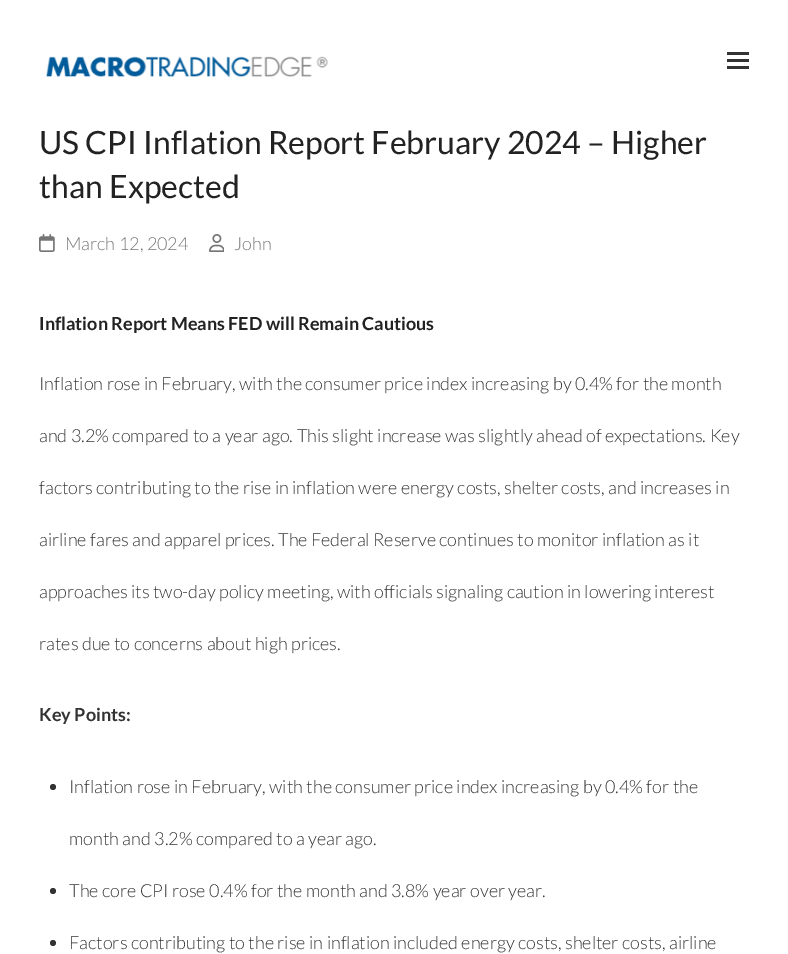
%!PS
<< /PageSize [788 954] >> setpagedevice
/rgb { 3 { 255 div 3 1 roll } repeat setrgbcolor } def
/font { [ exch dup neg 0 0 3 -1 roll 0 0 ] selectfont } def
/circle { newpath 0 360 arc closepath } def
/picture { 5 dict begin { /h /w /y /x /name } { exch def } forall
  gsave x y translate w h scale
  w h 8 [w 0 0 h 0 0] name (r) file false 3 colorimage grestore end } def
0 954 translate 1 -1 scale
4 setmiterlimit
255 255 255 rgb
0 0 788 954 rectfill
(img/1.rgb) 46 56 282 22 picture
[
  [727 59 22 3 51 51 51]
  [727 52 22 3 51 51 51]
  [727 66 22 3 51 51 51]
] { aload pop rgb rectfill } forall
(img/2.rgb) 39 234 16 18 picture
(img/3.rgb) 209 234 15 18 picture
53 787 3 circle fill
53 891 3 circle fill
53 943 3 circle fill
/Lato-Regular 32 font
34 34 34 rgb
39 154 moveto (US CPI Inflation Report February 2024 – Higher) show
39 198 moveto (than Expected) show
/Lato-Light 18 font
117 117 117 rgb
65 250 moveto (March 12, 2024) show
234 250 moveto (John) show
/Lato-Bold 18 font
34 34 34 rgb
39 330 moveto (Inflation Report Means FED will Remain Cautious) show
/Lato-Light 18 font
51 51 51 rgb
[
  [(Inflation rose in February, with the consumer price index increasing by 0.4% for the month) 39 390]
  [(and 3.2% compared to a year ago. This slight increase was slightly ahead of expectations. Key) 39 442]
  [(factors contributing to the rise in inflation were energy costs, shelter costs, and increases in) 39 494]
  [(airline fares and apparel prices. The Federal Reserve continues to monitor inflation as it) 39 546]
  [(approaches its two-day policy meeting, with officials signaling caution in lowering interest) 39 598]
  [(rates due to concerns about high prices.) 39 650]
] { aload pop moveto show } forall
/Lato-Bold 18 font
39 721 moveto (Key Points:) show
/Lato-Light 18 font
[
  [(Inflation rose in February, with the consumer price index increasing by 0.4% for the) 69 793]
  [(month and 3.2% compared to a year ago.) 69 845]
  [(The core CPI rose 0.4% for the month and 3.8% year over year.) 69 897]
  [(Factors contributing to the rise in inflation included energy costs, shelter costs, airline) 69 949]
] { aload pop moveto show } forall
showpage
